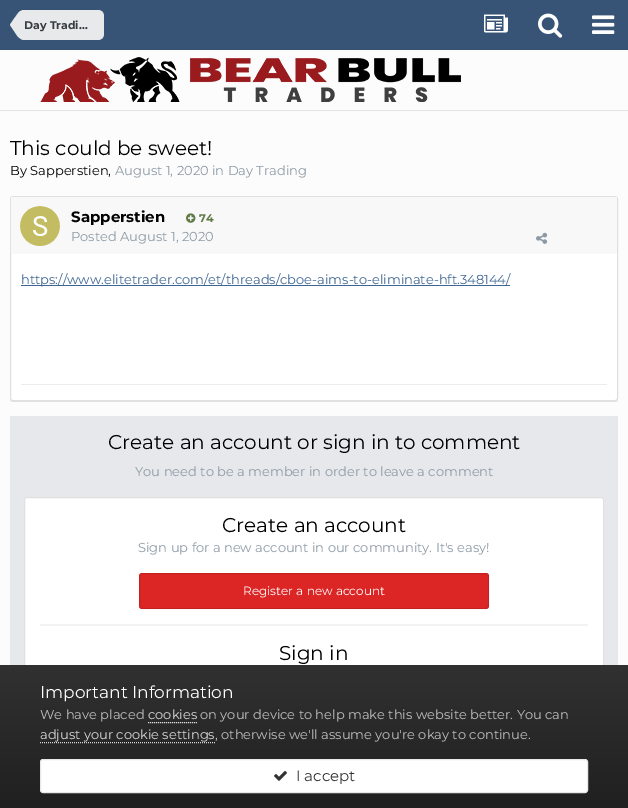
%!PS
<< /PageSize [628 808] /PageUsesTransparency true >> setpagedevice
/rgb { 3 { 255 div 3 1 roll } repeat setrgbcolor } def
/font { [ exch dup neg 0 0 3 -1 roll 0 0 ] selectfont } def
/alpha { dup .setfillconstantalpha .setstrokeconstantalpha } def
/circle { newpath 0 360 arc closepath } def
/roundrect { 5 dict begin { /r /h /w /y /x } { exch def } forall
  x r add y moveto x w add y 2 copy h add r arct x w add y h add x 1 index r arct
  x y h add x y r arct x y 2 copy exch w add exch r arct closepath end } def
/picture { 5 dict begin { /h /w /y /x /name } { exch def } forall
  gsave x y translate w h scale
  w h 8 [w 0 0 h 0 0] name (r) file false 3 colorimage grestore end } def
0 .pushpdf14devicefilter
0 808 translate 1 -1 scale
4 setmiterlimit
252 252 252 rgb
0 0 628 808 rectfill
227 227 227 rgb
0 110 628 1 rectfill
55 84 118 rgb
0 0 628 50 rectfill
232 233 235 rgb
24 10 moveto 98 10 lineto 101.5 10 104 12.5 104 16 curveto 104 34 lineto 104 37.5 101.5 40 98 40 curveto 24 40 lineto closepath fill
24 25 moveto 24 40 lineto 22 40 19.5 38.5 17 35.5 curveto 10 25 lineto closepath 24 25 moveto 10 25 lineto 10 24 18.5 12.5 19 12 curveto 20.5 11 22 10 24 10 curveto closepath fill
(img/1.rgb) 484 14 24 19 picture
(img/2.rgb) 538 13 25 25 picture
(img/3.rgb) 592 15 23 19 picture
(img/4.rgb) 40 57 421 45 picture
227 227 227 rgb
10 398 moveto 10 399 lineto 10 401 11 402 13 402 curveto 615 402 lineto 617 402 618 401 618 399 curveto 618 398 lineto 618 400 617 401 615 401 curveto 13 401 lineto 11 401 10 400 10 398 curveto closepath fill
255 255 255 rgb
10.5 196.5 607 204 2.5 roundrect gsave fill grestore
224 224 224 rgb
stroke
248 248 248 rgb
11 197 606 57 rectfill
255 255 255 rgb
40 226 20 circle fill
(img/5.rgb) 20 206 40 40 picture
(img/6.rgb) 186 213 10 10 picture
(img/7.rgb) 536 232 12 12 picture
[
  [21 285 489 1 61 101 148]
  [21 384 586 1 236 236 236]
  [10 416 608 249 230 232 235]
] { aload pop rgb rectfill } forall
255 255 255 rgb
24.5 497.5 579 255 2.5 roundrect gsave fill grestore
224 224 224 rgb
stroke
242 242 242 rgb
40 624 548 2 rectfill
220 37 37 rgb
139 573 350 36 3 roundrect fill
0.1 alpha
0 0 0 rgb
139.5 573.5 349 35 2.5 roundrect stroke
1 alpha
gsave 0 665 moveto 628 665 lineto 628 808 lineto 0 808 lineto closepath clip newpath
<< /ShadingType 2 /ColorSpace /DeviceRGB /Coords [314 665 314 808] /Extend [true true] /Function << /FunctionType 2 /Domain [0 1] /C0 [0.192 0.192 0.192] /C1 [0.125 0.125 0.125] /N 1 >> >> shfill grestore
218 218 218 rgb
[1 1] 0 setdash
148 722.5 moveto 197 722.5 lineto stroke
40 742.5 moveto 215 742.5 lineto stroke
255 255 255 rgb
40.5 759.5 547 33 2.5 roundrect gsave fill grestore
232 232 232 rgb
[] 0 setdash
stroke
(img/8.rgb) 274 771 13 10 picture
/Montserrat-Bold 11 font
53 60 65 rgb
24 29 moveto (Day Tradi…) show
/Montserrat-Regular 20 font
0 0 0 rgb
10 155 moveto (This could be sweet!) show
/Montserrat-Regular 13 font
10 175 moveto (By Sapperstien,) show
141 154 166 rgb
115 175 moveto (August 1, 2020 in Day Trading) show
/Montserrat-Bold 15 font
0 0 0 rgb
71 222 moveto (Sapperstien) show
/Montserrat-Bold 11 font
95 122 71 rgb
199 222 moveto (74) show
/Montserrat-Regular 13 font
141 154 166 rgb
71 241 moveto (Posted August 1, 2020) show
61 101 148 rgb
21 284 moveto (https://www.elitetrader.com/et/threads/cboe-aims-to-eliminate-hft.348144/) show
/Montserrat-Regular 20 font
0 0 0 rgb
108 449 moveto (Create an account or sign in to comment) show
/Montserrat-Regular 13 font
141 154 166 rgb
135 476 moveto (You need to be a member in order to leave a comment) show
/Montserrat-Regular 20 font
0 0 0 rgb
222 532 moveto (Create an account) show
/Montserrat-Regular 13 font
141 154 166 rgb
138 552 moveto (Sign up for a new account in our community. It's easy!) show
/Montserrat-Regular 12 font
255 255 255 rgb
243 595 moveto (Register a new account) show
/Montserrat-Regular 20 font
0 0 0 rgb
279 660 moveto (Sign in) show
/Montserrat-Regular 17 font
255 255 255 rgb
40 698 moveto (Important Information) show
/Montserrat-Regular 13 font
192 192 192 rgb
40 719 moveto (We have placed) show
218 218 218 rgb
148 719 moveto (cookies) show
192 192 192 rgb
200 719 moveto (on your device to help make this website better. You can) show
218 218 218 rgb
40 739 moveto (adjust your cookie settings) show
192 192 192 rgb
215 739 moveto (, otherwise we'll assume you're okay to continue.) show
/Montserrat-Regular 15 font
51 51 51 rgb
296 781 moveto (I accept) show
.poppdf14devicefilter showpage
